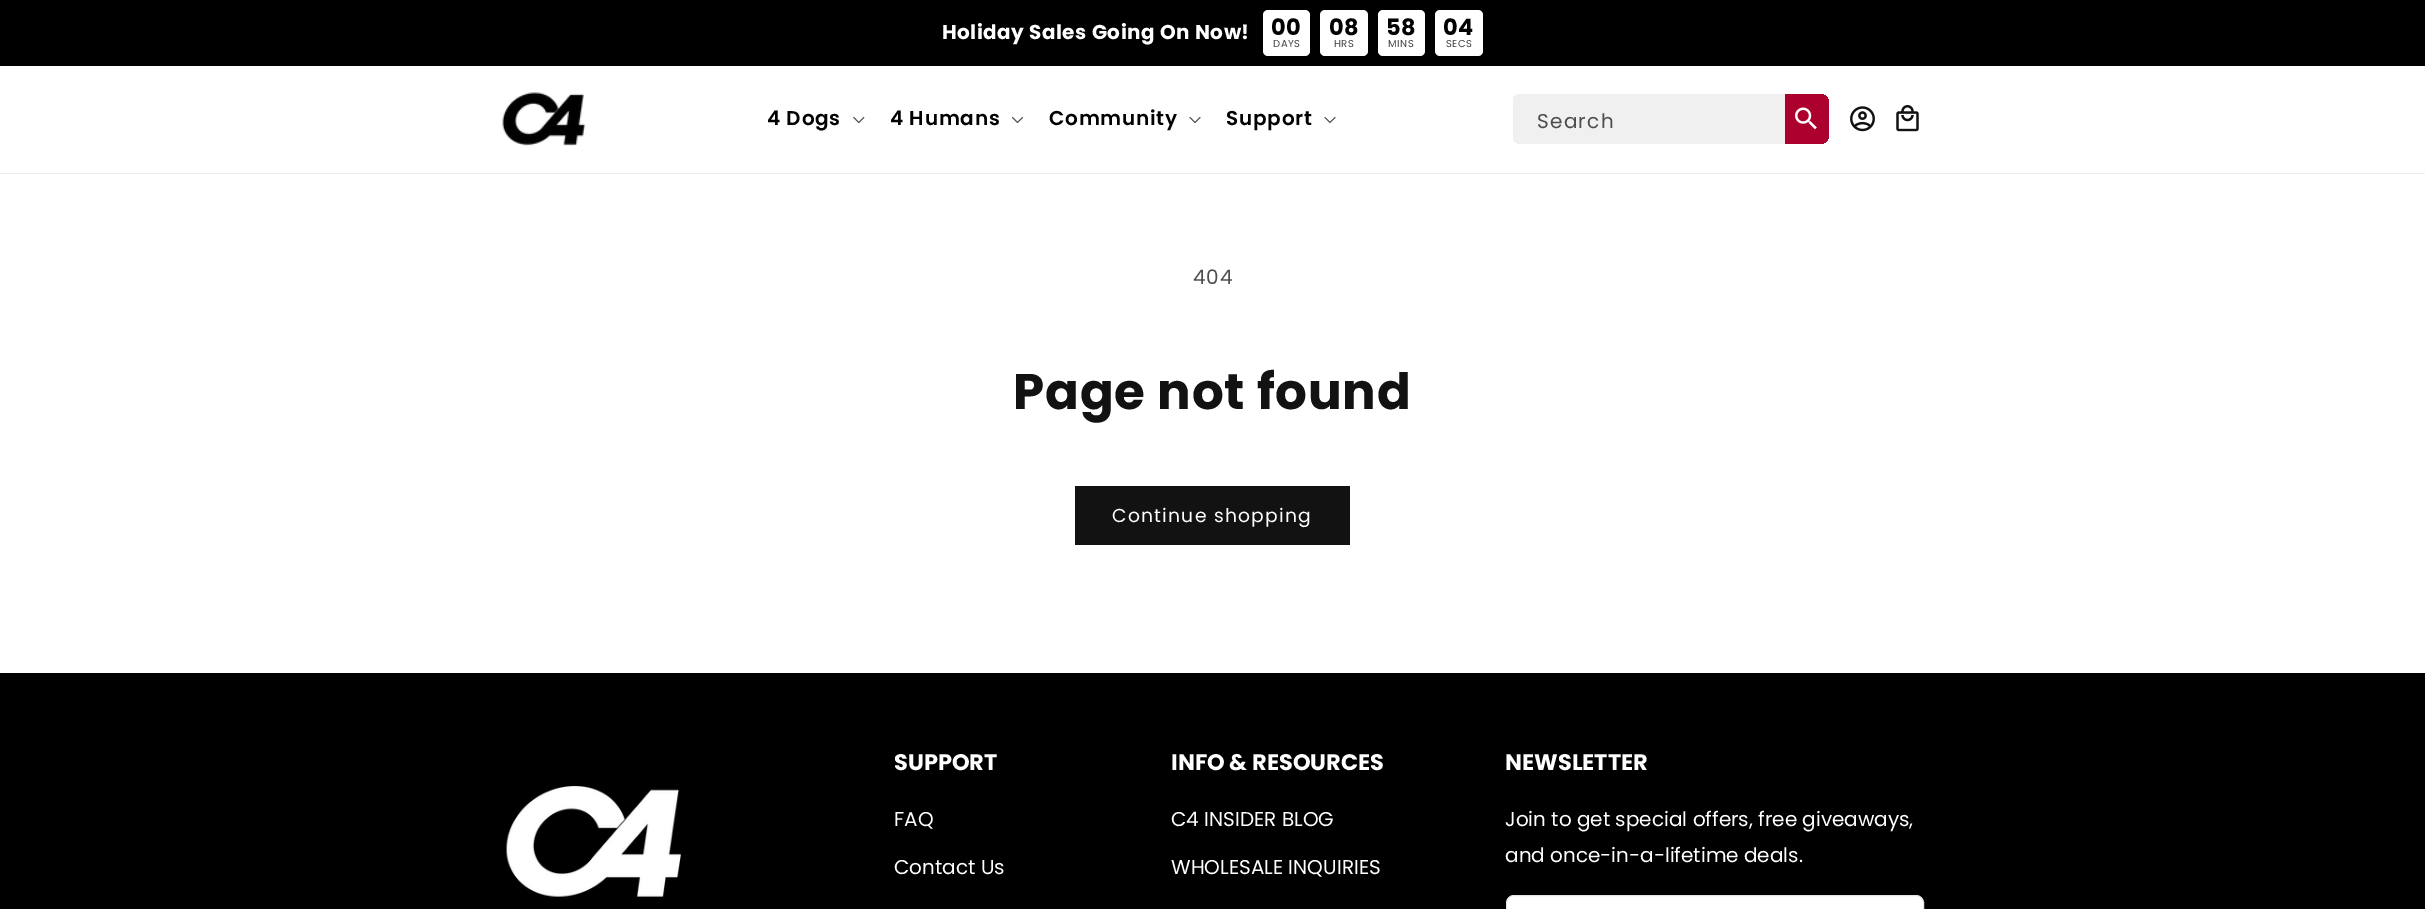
%!PS
<< /PageSize [2425 909] >> setpagedevice
/rgb { 3 { 255 div 3 1 roll } repeat setrgbcolor } def
/font { [ exch dup neg 0 0 3 -1 roll 0 0 ] selectfont } def
/roundrect { 5 dict begin { /r /h /w /y /x } { exch def } forall
  x r add y moveto x w add y 2 copy h add r arct x w add y h add x 1 index r arct
  x y h add x y r arct x y 2 copy exch w add exch r arct closepath end } def
/picture { 5 dict begin { /h /w /y /x /name } { exch def } forall
  gsave x y translate w h scale
  w h 8 [w 0 0 h 0 0] name (r) file false 3 colorimage grestore end } def
0 909 translate 1 -1 scale
4 setmiterlimit
255 255 255 rgb
0 0 2425 909 rectfill
0 0 0 rgb
0 0 2425 66 rectfill
255 255 255 rgb
1263 10 47 46 5 roundrect fill
1320 10 48 46 5 roundrect fill
1378 10 47 46 5 roundrect fill
1435 10 48 46 5 roundrect fill
236 236 236 rgb
0 173 2425 1 rectfill
(img/1.rgb) 502 92 84 54 picture
(img/2.rgb) 853 116 12 8 picture
(img/3.rgb) 1011 116 13 8 picture
(img/4.rgb) 1189 117 12 6 picture
(img/4.rgb) 1324 117 12 6 picture
gsave
1511 93 319 52 13 roundrect clip newpath
240 240 240 rgb
1513 94 316 50 rectfill
172 0 47 rgb
1785 94 44 50 rectfill
grestore
(img/5.rgb) 1795 107 22 23 picture
(img/6.rgb) 1850 106 25 26 picture
(img/7.rgb) 1896 105 23 27 picture
18 18 18 rgb
1075 486 275 59 rectfill
0 0 0 rgb
0 673 2425 236 rectfill
(img/8.rgb) 506 785 175 112 picture
255 255 255 rgb
1506.5 895.5 417 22 7.5 roundrect gsave fill grestore
229 229 229 rgb
stroke
/Poppins-Bold 20 font
255 255 255 rgb
942 39 moveto 0.5 0 (Holiday Sales Going On Now!) ashow
/Poppins-Bold 22.5 font
2 2 2 rgb
1271 35 moveto 0.5 0 (00) ashow
/Poppins-Regular 10 font
68 68 68 rgb
1273 47 moveto 0.5 0 (DAYS) ashow
/Poppins-Bold 22.5 font
2 2 2 rgb
1329 35 moveto 0.5 0 (08) ashow
/Poppins-Regular 10 font
68 68 68 rgb
1334 47 moveto 0.5 0 (HRS) ashow
/Poppins-Bold 22.5 font
2 2 2 rgb
1386 35 moveto 0.5 0 (58) ashow
/Poppins-Regular 10 font
68 68 68 rgb
1388 47 moveto 0.5 0 (MINS) ashow
/Poppins-Bold 22.5 font
2 2 2 rgb
1443 35 moveto 0.5 0 (04) ashow
/Poppins-Regular 10 font
68 68 68 rgb
1446 47 moveto 0.5 0 (SECS) ashow
/Poppins-SemiBold 20 font
2 2 2 rgb
767 125 moveto 0.75 0 (4 Dogs) ashow
890 125 moveto 0.75 0 (4 Humans) ashow
1049 125 moveto 0.75 0 (Community) ashow
1226 125 moveto 0.75 0 (Support) ashow
/Poppins-Regular 20 font
77 77 77 rgb
1537 128 moveto 1.25 0 (Search) ashow
1193 284 moveto 0.75 0 (404) ashow
/Poppins-Bold 50 font
18 18 18 rgb
1013 409 moveto 0.75 0 (Page not found) ashow
/Poppins-Regular 18.75 font
255 255 255 rgb
1112 522 moveto 1.25 0 (Continue shopping) ashow
/Poppins-Bold 22.5 font
894 770 moveto (SUPPORT) show
/Poppins-Regular 20 font
894 826 moveto (FAQ) show
894 874 moveto (Contact Us) show
/Poppins-Bold 22.5 font
1171 770 moveto (INFO & RESOURCES) show
/Poppins-Regular 20 font
1171 826 moveto (C4 INSIDER BLOG) show
1171 874 moveto (WHOLESALE INQUIRIES) show
/Poppins-Bold 22.5 font
1505 770 moveto (NEWSLETTER) show
/Poppins-Regular 20 font
1505 826 moveto (Join to get special offers, free giveaways,) show
1505 862 moveto (and once-in-a-lifetime deals.) show
showpage
